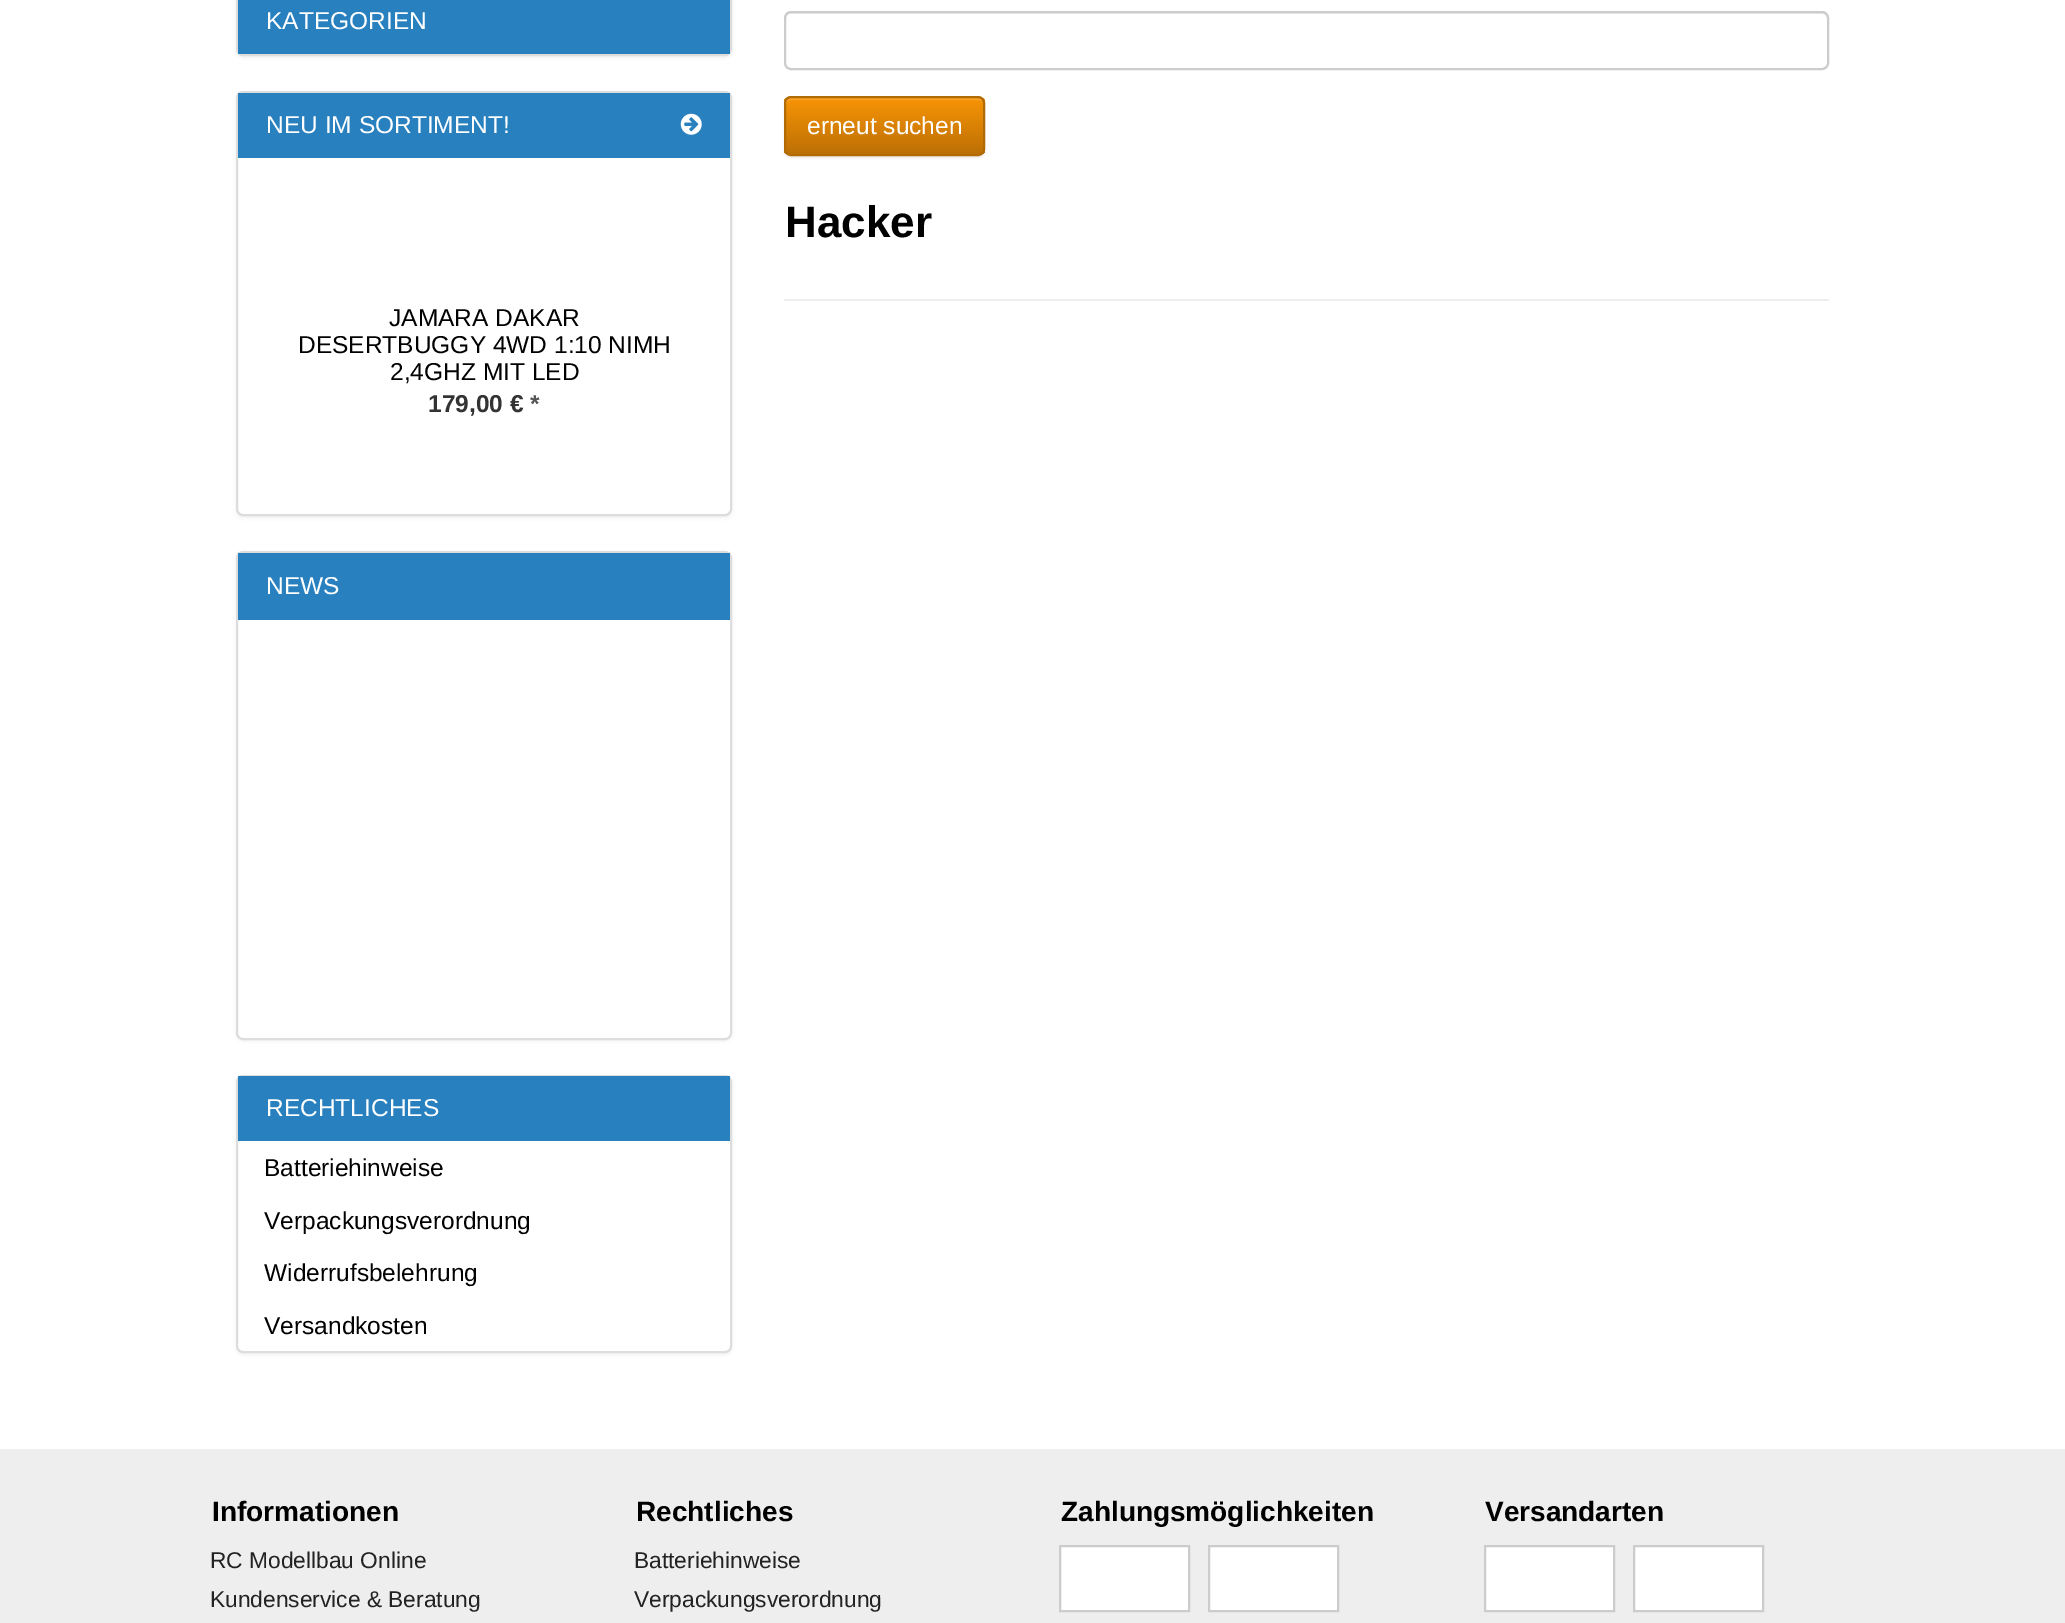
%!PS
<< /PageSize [2065 1623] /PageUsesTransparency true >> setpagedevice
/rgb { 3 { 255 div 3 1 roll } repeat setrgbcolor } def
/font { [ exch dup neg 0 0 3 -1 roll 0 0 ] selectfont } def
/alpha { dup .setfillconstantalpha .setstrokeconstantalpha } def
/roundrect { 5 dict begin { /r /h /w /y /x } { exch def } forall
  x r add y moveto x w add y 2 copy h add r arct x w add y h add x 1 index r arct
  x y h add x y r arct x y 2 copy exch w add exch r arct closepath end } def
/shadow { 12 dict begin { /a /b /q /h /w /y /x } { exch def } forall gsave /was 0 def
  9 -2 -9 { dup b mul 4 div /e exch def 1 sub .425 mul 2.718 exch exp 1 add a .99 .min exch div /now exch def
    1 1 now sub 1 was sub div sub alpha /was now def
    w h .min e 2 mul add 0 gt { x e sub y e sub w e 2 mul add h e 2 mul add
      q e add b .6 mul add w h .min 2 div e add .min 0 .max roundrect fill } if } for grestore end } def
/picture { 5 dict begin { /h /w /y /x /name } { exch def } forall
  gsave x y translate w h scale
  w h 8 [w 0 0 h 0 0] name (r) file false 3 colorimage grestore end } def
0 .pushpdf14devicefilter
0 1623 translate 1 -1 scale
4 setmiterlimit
255 255 255 rgb
0 0 2065 1623 rectfill
0 0 0 rgb
236 -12 496 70 7 2 0.05 shadow
221 221 221 rgb
2 setlinewidth
237 -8 494 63 6 roundrect stroke
40 128 191 rgb
238 0 492 54 rectfill
0 0 0 rgb
236 93 496 425 7 2 0.05 shadow
255 255 255 rgb
237 92 494 423 6 roundrect gsave fill grestore
221 221 221 rgb
stroke
40 128 191 rgb
238 93 492 65 rectfill
(img/1.rgb) 680 113 22 22 picture
0 0 0 rgb
236 553 496 488 7 2 0.05 shadow
255 255 255 rgb
237 552 494 487 6 roundrect gsave fill grestore
221 221 221 rgb
stroke
40 128 191 rgb
238 553 492 67 rectfill
0 0 0 rgb
236 1076 496 279 7 2 0.05 shadow
255 255 255 rgb
237 1076 494 276 6 roundrect gsave fill grestore
221 221 221 rgb
stroke
40 128 191 rgb
238 1076 492 65 rectfill
236 236 236 rgb
791 14 moveto 1822 14 lineto 1825 14 1827 16 1827 19 curveto 1827 17 lineto 1827 14 1825 12 1822 12 curveto 791 12 lineto 788 12 786 14 786 17 curveto 786 19 lineto 786 16 788 14 791 14 curveto closepath fill
204 204 204 rgb
785 12 1043 57 6 roundrect stroke
0 0 0 rgb
784 98 201 60 7 1 0.07 shadow
gsave
784 96 201 60 7 roundrect clip newpath
gsave 784 98 moveto 985 98 lineto 985 154 lineto 784 154 lineto closepath clip newpath
<< /ShadingType 2 /ColorSpace /DeviceRGB /Coords [885 98 885 154] /Extend [true true] /Function << /FunctionType 2 /Domain [0 1] /C0 [0.973 0.58 0.024] /C1 [0.737 0.439 0.02] /N 1 >> >> shfill grestore
grestore
0.15 alpha
255 255 255 rgb
791 100 moveto 978 100 lineto 981 100 984 102 984 105 curveto 984 103 lineto 984 100 982 98 979 98 curveto 791 98 lineto 788 98 786 100 786 103 curveto 786 105 lineto 786 102 788 100 791 100 curveto closepath fill
1 alpha
178 106 4 rgb
785 97 199 58 6 roundrect stroke
238 238 238 rgb
784 299 1045 2 rectfill
0 1449 2065 174 rectfill
255 255 255 rgb
1060 1546 moveto 1189 1546 lineto 1189 1611 lineto 1060 1611 lineto closepath gsave fill grestore
204 204 204 rgb
stroke
255 255 255 rgb
1209 1546 moveto 1338 1546 lineto 1338 1611 lineto 1209 1611 lineto closepath gsave fill grestore
204 204 204 rgb
stroke
255 255 255 rgb
1485 1546 moveto 1614 1546 lineto 1614 1611 lineto 1485 1611 lineto closepath gsave fill grestore
204 204 204 rgb
stroke
255 255 255 rgb
1634 1546 moveto 1763 1546 lineto 1763 1611 lineto 1634 1611 lineto closepath gsave fill grestore
204 204 204 rgb
stroke
/LiberationSans-Regular 24.5 font
255 255 255 rgb
266 29 moveto (KATEGORIEN) show
266 133 moveto (NEU IM SORTIMENT!) show
0 0 0 rgb
[
  [(JAMARA DAKAR) 389 326]
  [(DESERTBUGGY 4WD 1:10 NIMH) 298 353]
  [(2,4GHZ MIT LED) 390 380]
] { aload pop moveto show } forall
/LiberationSans-Bold 24.5 font
51 51 51 rgb
428 412 moveto (179,00 €) show
85 85 85 rgb
530 412 moveto (*) show
/LiberationSans-Regular 24.5 font
255 255 255 rgb
266 594 moveto (NEWS) show
266 1116 moveto (RECHTLICHES) show
0 0 0 rgb
[
  [(Batteriehinweise) 264 1176]
  [(Verpackungsverordnung) 264 1229]
  [(Widerrufsbelehrung) 264 1281]
  [(Versandkosten) 264 1334]
] { aload pop moveto show } forall
255 255 255 rgb
807 134 moveto (erneut suchen) show
/LiberationSans-Bold 44 font
0 0 0 rgb
785 237 moveto (Hacker) show
/LiberationSans-Bold 28 font
212 1521 moveto (Informationen) show
/LiberationSans-Regular 22.75 font
34 34 34 rgb
210 1568 moveto (RC Modellbau Online) show
210 1607 moveto (Kundenservice & Beratung) show
/LiberationSans-Bold 28 font
0 0 0 rgb
636 1521 moveto (Rechtliches) show
/LiberationSans-Regular 22.75 font
34 34 34 rgb
634 1568 moveto (Batteriehinweise) show
634 1607 moveto (Verpackungsverordnung) show
/LiberationSans-Bold 28 font
0 0 0 rgb
1061 1521 moveto (Zahlungsmöglichkeiten) show
1485 1521 moveto (Versandarten) show
.poppdf14devicefilter showpage
